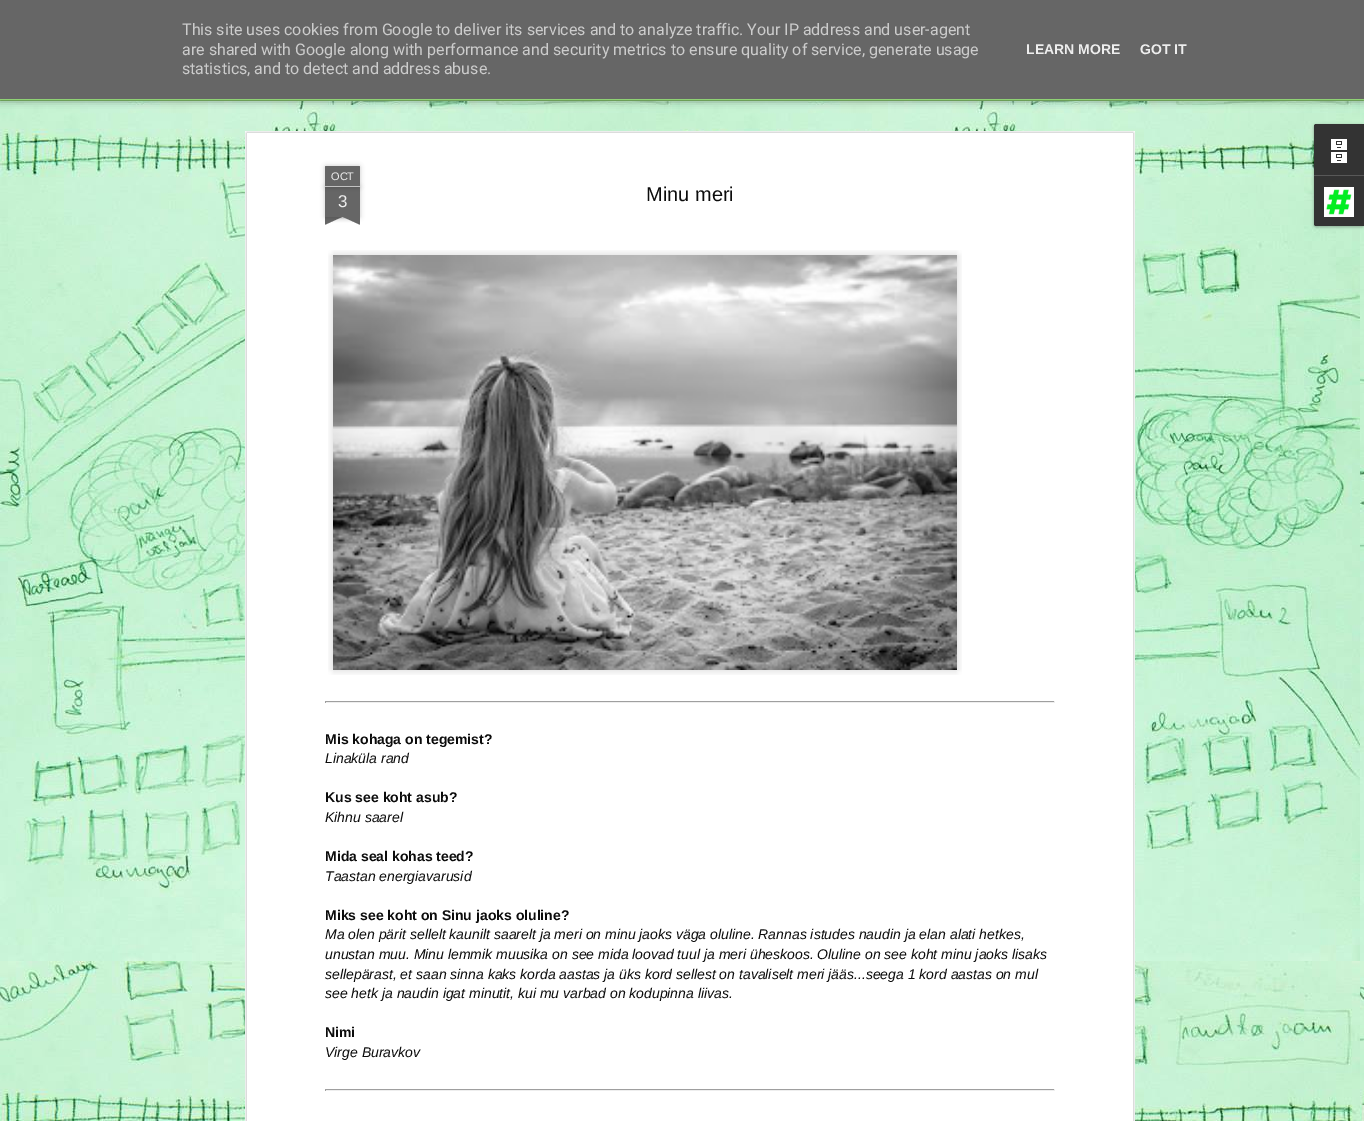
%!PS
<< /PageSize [1364 1121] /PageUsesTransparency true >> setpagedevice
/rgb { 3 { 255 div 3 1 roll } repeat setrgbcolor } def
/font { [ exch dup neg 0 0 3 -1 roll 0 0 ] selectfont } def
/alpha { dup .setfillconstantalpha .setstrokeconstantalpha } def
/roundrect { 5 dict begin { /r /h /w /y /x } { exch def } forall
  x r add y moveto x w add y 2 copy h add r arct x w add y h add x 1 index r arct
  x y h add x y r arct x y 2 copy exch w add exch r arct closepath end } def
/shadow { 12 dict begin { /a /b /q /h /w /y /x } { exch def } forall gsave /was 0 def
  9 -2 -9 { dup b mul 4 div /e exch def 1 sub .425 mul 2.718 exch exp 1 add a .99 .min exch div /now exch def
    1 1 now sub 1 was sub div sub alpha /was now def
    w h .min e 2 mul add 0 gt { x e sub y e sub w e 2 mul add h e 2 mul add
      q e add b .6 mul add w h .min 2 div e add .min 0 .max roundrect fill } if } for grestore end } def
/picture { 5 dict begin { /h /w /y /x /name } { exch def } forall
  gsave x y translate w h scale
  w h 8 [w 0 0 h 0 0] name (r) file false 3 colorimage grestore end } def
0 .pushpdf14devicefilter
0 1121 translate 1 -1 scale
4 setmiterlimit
143 210 117 rgb
0 0 1364 1121 rectfill
(img/1.rgb) 0 101 1364 1020 picture
0 0 0 rgb
0 65 1364 35 0 4 0.5 shadow
[
  [0 0 1364 99 102 102 102]
  [0 99 1364 1 143 210 117]
  [245 131 890 990 255 255 255]
] { aload pop rgb rectfill } forall
(img/2.rgb) 245 131 890 990 picture
0 0 0 rgb
325 187 35 30 0 2.5 0.2 shadow
102 102 102 rgb
325 187 35 30 rectfill
0 0 0 rgb
325 166 35 21 1 2.5 0.2 shadow
102 102 102 rgb
326 166 moveto 359 166 lineto 359.5 166 360 166.5 360 167 curveto 360 187 lineto 325 187 lineto 325 167 lineto 325 166.5 325.5 166 326 166 curveto closepath fill
194 194 194 rgb
325 186 35 1 rectfill
gsave
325 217 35 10 rectclip
0 0 0 rgb
316 207 50 10 0 2.5 0.2 shadow
grestore
gsave
325 217 35 10 rectclip
102 102 102 rgb
316 218 moveto 362 197 lineto 366 206 lineto 320 227 lineto closepath fill
grestore
gsave
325 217 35 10 rectclip
0 0 0 rgb
319 207 50 10 0 2.5 0.2 shadow
grestore
gsave
325 217 35 10 rectclip
102 102 102 rgb
323 197 moveto 369 218 lineto 365 227 lineto 319 206 lineto closepath fill
grestore
(img/3.rgb) 328 250 634 425 picture
[
  [325 701 730 1 159 159 159]
  [1054 701 1 2 238 238 238]
  [325 702 730 1 238 238 238]
  [325 701 1 2 159 159 159]
  [325 1089 730 1 159 159 159]
  [1054 1089 1 2 238 238 238]
  [325 1090 730 1 238 238 238]
  [325 1089 1 2 159 159 159]
] { aload pop rgb rectfill } forall
0 0 0 rgb
1314 125 50 102 2 1.5 0.3 shadow
51 51 51 rgb
1316 124 moveto 1364 124 lineto 1364 175 lineto 1314 175 lineto 1314 126 lineto 1314 125 1315 124 1316 124 curveto closepath fill
(img/4.rgb) 1331 139 16 24 picture
1314 175 moveto 1364 175 lineto 1364 226 lineto 1316 226 lineto 1315 226 1314 225 1314 224 curveto closepath fill
88 88 88 rgb
1314 175 50 1 rectfill
(img/5.rgb) 1324 187 30 30 picture
/Roboto-Regular 16 font
204 204 204 rgb
[
  [(This site uses cookies from Google to deliver its services and to analyze traffic. Your IP address and user-agent) 182 35]
  [(are shared with Google along with performance and security metrics to ensure quality of service, generate usage) 182 55]
  [(statistics, and to detect and address abuse.) 182 74]
] { aload pop moveto show } forall
/LiberationSans-Bold 14 font
238 238 238 rgb
1026 54 moveto (LEARN MORE) show
1140 54 moveto (GOT IT) show
/LiberationSans-Regular 11 font
331 180 moveto (OCT) show
/LiberationSans-Regular 17 font
338 207 moveto (3) show
/LiberationSans-Regular 20 font
12 12 12 rgb
646 201 moveto (Minu meri) show
/LiberationSans-Bold 14 font
325 744 moveto (Mis kohaga on tegemist?) show
/LiberationSans-Italic 14 font
325 763 moveto (Linaküla rand) show
/LiberationSans-Bold 14 font
325 802 moveto (Kus see koht asub?) show
/LiberationSans-Italic 14 font
325 822 moveto (Kihnu saarel) show
/LiberationSans-Bold 14 font
325 861 moveto (Mida seal kohas teed?) show
/LiberationSans-Italic 14 font
325 881 moveto (Taastan energiavarusid) show
/LiberationSans-Bold 14 font
325 920 moveto (Miks see koht on Sinu jaoks oluline?) show
/LiberationSans-Italic 14 font
[
  [(Ma olen pärit sellelt kaunilt saarelt ja meri on minu jaoks väga oluline. Rannas istudes naudin ja elan alati hetkes,) 325 939]
  [(unustan muu. Minu lemmik muusika on see mida loovad tuul ja meri üheskoos. Oluline on see koht minu jaoks lisaks) 325 959]
  [(sellepärast, et saan sinna kaks korda aastas ja üks kord sellest on tavaliselt meri jääs...seega 1 kord aastas on mul) 325 979]
  [(see hetk ja naudin igat minutit, kui mu varbad on kodupinna liivas.) 325 998]
] { aload pop moveto show } forall
/LiberationSans-Bold 14 font
325 1037 moveto (Nimi) show
/LiberationSans-Italic 14 font
325 1057 moveto (Virge Buravkov) show
.poppdf14devicefilter showpage
